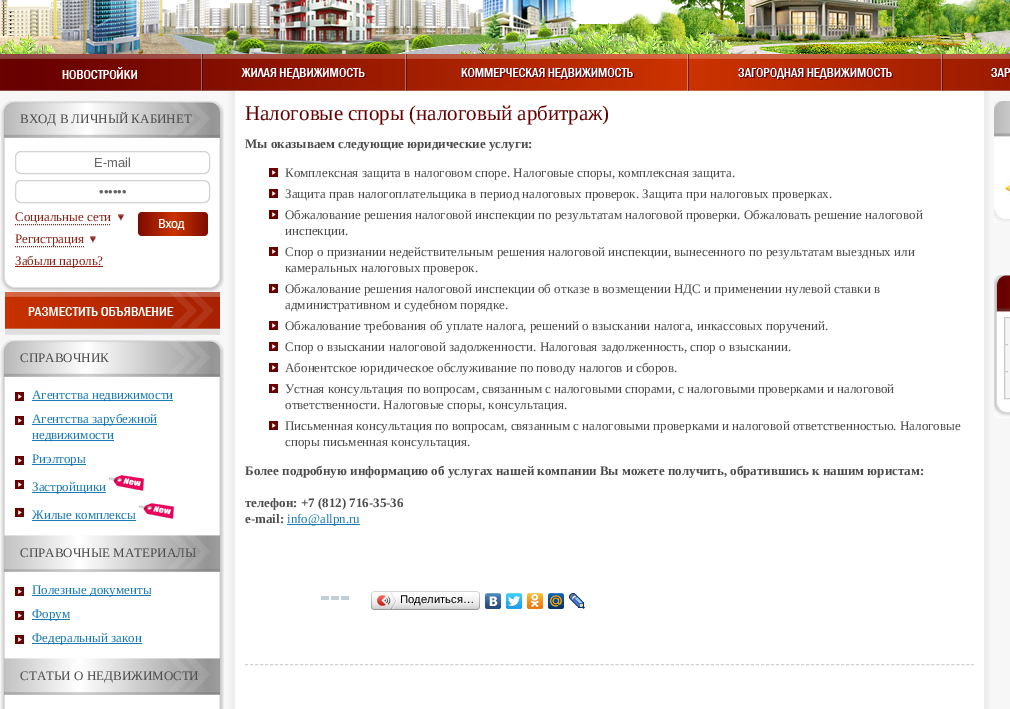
%!PS
<< /PageSize [1010 709] >> setpagedevice
/rgb { 3 { 255 div 3 1 roll } repeat setrgbcolor } def
/font { [ exch dup neg 0 0 3 -1 roll 0 0 ] selectfont } def
/roundrect { 5 dict begin { /r /h /w /y /x } { exch def } forall
  x r add y moveto x w add y 2 copy h add r arct x w add y h add x 1 index r arct
  x y h add x y r arct x y 2 copy exch w add exch r arct closepath end } def
/picture { 5 dict begin { /h /w /y /x /name } { exch def } forall
  gsave x y translate w h scale
  w h 8 [w 0 0 h 0 0] name (r) file false 3 colorimage grestore end } def
0 709 translate 1 -1 scale
4 setmiterlimit
255 255 255 rgb
0 0 1010 709 rectfill
(img/1.rgb) 0 0 1010 54 picture
(img/2.rgb) 0 54 1010 37 picture
(img/3.rgb) 62 67 76 13 picture
(img/4.rgb) 201 54 2 37 picture
(img/5.rgb) 241 68 125 12 picture
(img/6.rgb) 405 54 2 37 picture
(img/7.rgb) 461 68 173 12 picture
(img/8.rgb) 687 54 2 37 picture
(img/9.rgb) 738 68 155 12 picture
(img/10.rgb) 941 54 2 37 picture
(img/11.rgb) 991 68 19 10 picture
(img/12.rgb) 0 91 235 618 picture
(img/13.rgb) 0 101 224 37 picture
(img/14.rgb) 1 138 223 138 picture
211 211 211 rgb
15.5 151.5 194 22 5.5 roundrect stroke
15.5 180.5 194 22 5.5 roundrect stroke
139 35 23 rgb
[1 1] 0 setdash
15 224.5 moveto 111 224.5 lineto stroke
(img/15.rgb) 118 214 6 7 picture
15 246.5 moveto 84 246.5 lineto stroke
(img/15.rgb) 90 236 6 7 picture
15 266 88 1 rectfill
(img/16.rgb) 138 212 70 24 picture
(img/17.rgb) 0 276 224 16 picture
(img/18.rgb) 5 292 215 43 picture
(img/13.rgb) 0 340 224 37 picture
(img/19.rgb) 1 377 223 158 picture
(img/20.rgb) 15 392 9 9 picture
25 122 180 rgb
32 400 141 1 rectfill
(img/20.rgb) 15 416 9 9 picture
32 424 125 1 rectfill
32 440 82 1 rectfill
(img/20.rgb) 15 456 9 9 picture
32 464 54 1 rectfill
(img/20.rgb) 15 480 9 9 picture
32 492 74 1 rectfill
(img/21.rgb) 109 475 35 16 picture
(img/20.rgb) 15 508 9 9 picture
32 520 104 1 rectfill
(img/21.rgb) 139 503 35 16 picture
(img/22.rgb) 1 535 223 37 picture
(img/23.rgb) 1 572 223 86 picture
(img/20.rgb) 15 587 9 9 picture
32 595 119 1 rectfill
(img/20.rgb) 15 611 9 9 picture
32 619 38 1 rectfill
(img/20.rgb) 15 635 9 9 picture
32 643 110 1 rectfill
(img/22.rgb) 1 658 223 37 picture
(img/24.rgb) 1 695 223 14 picture
(img/20.rgb) 269 168 9 9 picture
(img/20.rgb) 269 189 9 9 picture
(img/20.rgb) 269 210 9 9 picture
(img/20.rgb) 269 247 9 9 picture
(img/20.rgb) 269 284 9 9 picture
(img/20.rgb) 269 321 9 9 picture
(img/20.rgb) 269 342 9 9 picture
(img/20.rgb) 269 363 9 9 picture
(img/20.rgb) 269 384 9 9 picture
(img/20.rgb) 269 421 9 9 picture
287 524 73 1 rectfill
(img/25.rgb) 321 596 28 4 picture
(img/26.rgb) 374 591 103 19 picture
(img/27.rgb) 371 591 3 19 picture
(img/28.rgb) 377 592 20 17 picture
(img/29.rgb) 477 591 3 19 picture
(img/30.rgb) 485 593 16 16 picture
(img/31.rgb) 506 593 16 16 picture
(img/32.rgb) 527 593 16 16 picture
(img/33.rgb) 548 593 16 16 picture
(img/34.rgb) 569 593 16 16 picture
209 209 209 rgb
[3 2.01] 0 setdash
245 664.5 moveto 974 664.5 lineto stroke
(img/35.rgb) 984 91 26 618 picture
(img/36.rgb) 994 101 16 36 picture
255 255 255 rgb
994 137 16 73 rectfill
(img/37.rgb) 1004 181 6 16 picture
(img/38.rgb) 994 210 16 13 picture
(img/39.rgb) 994 275 16 37 picture
(img/40.rgb) 994 312 16 92 picture
246 246 246 rgb
1004.5 317.5 moveto 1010.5 317.5 lineto 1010.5 398.5 lineto 1004.5 398.5 lineto closepath gsave fill grestore
202 202 202 rgb
[] 0 setdash
stroke
[3 2.17] 0 setdash
1005 344.5 moveto 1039 344.5 lineto 1005 371.5 moveto 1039 371.5 lineto stroke
(img/41.rgb) 994 404 16 14 picture
/LiberationSerif-Regular 13 font
76 76 76 rgb
20 123 moveto (ВХОД В ЛИЧНЫЙ КАБИНЕТ) show
/LiberationSans-Regular 13 font
101 101 101 rgb
94 167 moveto (E-mail) show
99 196 moveto (••••••) show
/LiberationSerif-Regular 13 font
139 35 23 rgb
[
  [(Социальные сети) 15 221]
  [(Регистрация) 15 243]
  [(Забыли пароль?) 15 265]
] { aload pop moveto show } forall
76 76 76 rgb
20 362 moveto (СПРАВОЧНИК) show
25 122 180 rgb
[
  [(Агентства недвижимости) 32 399]
  [(Агентства зарубежной) 32 423]
  [(недвижимости) 32 439]
  [(Риэлторы) 32 463]
  [(Застройщики) 32 491]
  [(Жилые комплексы) 32 519]
] { aload pop moveto show } forall
76 76 76 rgb
20 557 moveto (СПРАВОЧНЫЕ МАТЕРИАЛЫ) show
25 122 180 rgb
[
  [(Полезные документы) 32 594]
  [(Форум) 32 618]
  [(Федеральный закон) 32 642]
] { aload pop moveto show } forall
76 76 76 rgb
20 680 moveto (СТАТЬИ О НЕДВИЖИМОСТИ) show
/LiberationSerif-Regular 21 font
102 0 0 rgb
245 120 moveto (Налоговые споры \(налоговый арбитраж\)) show
/LiberationSerif-Bold 13 font
76 76 76 rgb
245 148 moveto (Мы оказываем следующие юридические услуги:) show
/LiberationSerif-Regular 13 font
[
  [(Комплексная защита в налоговом споре. Налоговые споры, комплексная защита.) 285 177]
  [(Защита прав налогоплательщика в период налоговых проверок. Защита при налоговых проверках.) 285 198]
  [(Обжалование решения налоговой инспекции по результатам налоговой проверки. Обжаловать решение налоговой) 285 219]
  [(инспекции.) 285 235]
  [(Спор о признании недействительным решения налоговой инспекции, вынесенного по результатам выездных или) 285 256]
  [(камеральных налоговых проверок.) 285 272]
  [(Обжалование решения налоговой инспекции об отказе в возмещении НДС и применении нулевой ставки в) 285 293]
  [(административном и судебном порядке.) 285 309]
  [(Обжалование требования об уплате налога, решений о взыскании налога, инкассовых поручений.) 285 330]
  [(Спор о взыскании налоговой задолженности. Налоговая задолженность, спор о взыскании.) 285 351]
  [(Абонентское юридическое обслуживание по поводу налогов и сборов.) 285 372]
  [(Устная консультация по вопросам, связанным с налоговыми спорами, с налоговыми проверками и налоговой) 285 393]
  [(ответственности. Налоговые споры, консультация.) 285 409]
  [(Письменная консультация по вопросам, связанным с налоговыми проверками и налоговой ответственностью. Налоговые) 285 430]
  [(споры письменная консультация.) 285 446]
] { aload pop moveto show } forall
/LiberationSerif-Bold 13 font
[
  [(Более подробную информацию об услугах нашей компании Вы можете получить, обратившись к нашим юристам:) 245 475]
  [(телефон: +7 \(812\) 716-35-36) 245 507]
  [(e-mail:) 245 523]
] { aload pop moveto show } forall
/LiberationSerif-Regular 13 font
25 122 180 rgb
287 523 moveto (info@allpn.ru) show
/LiberationSans-Regular 11.25 font
0 0 0 rgb
400 603 moveto (Поделиться…) show
showpage
